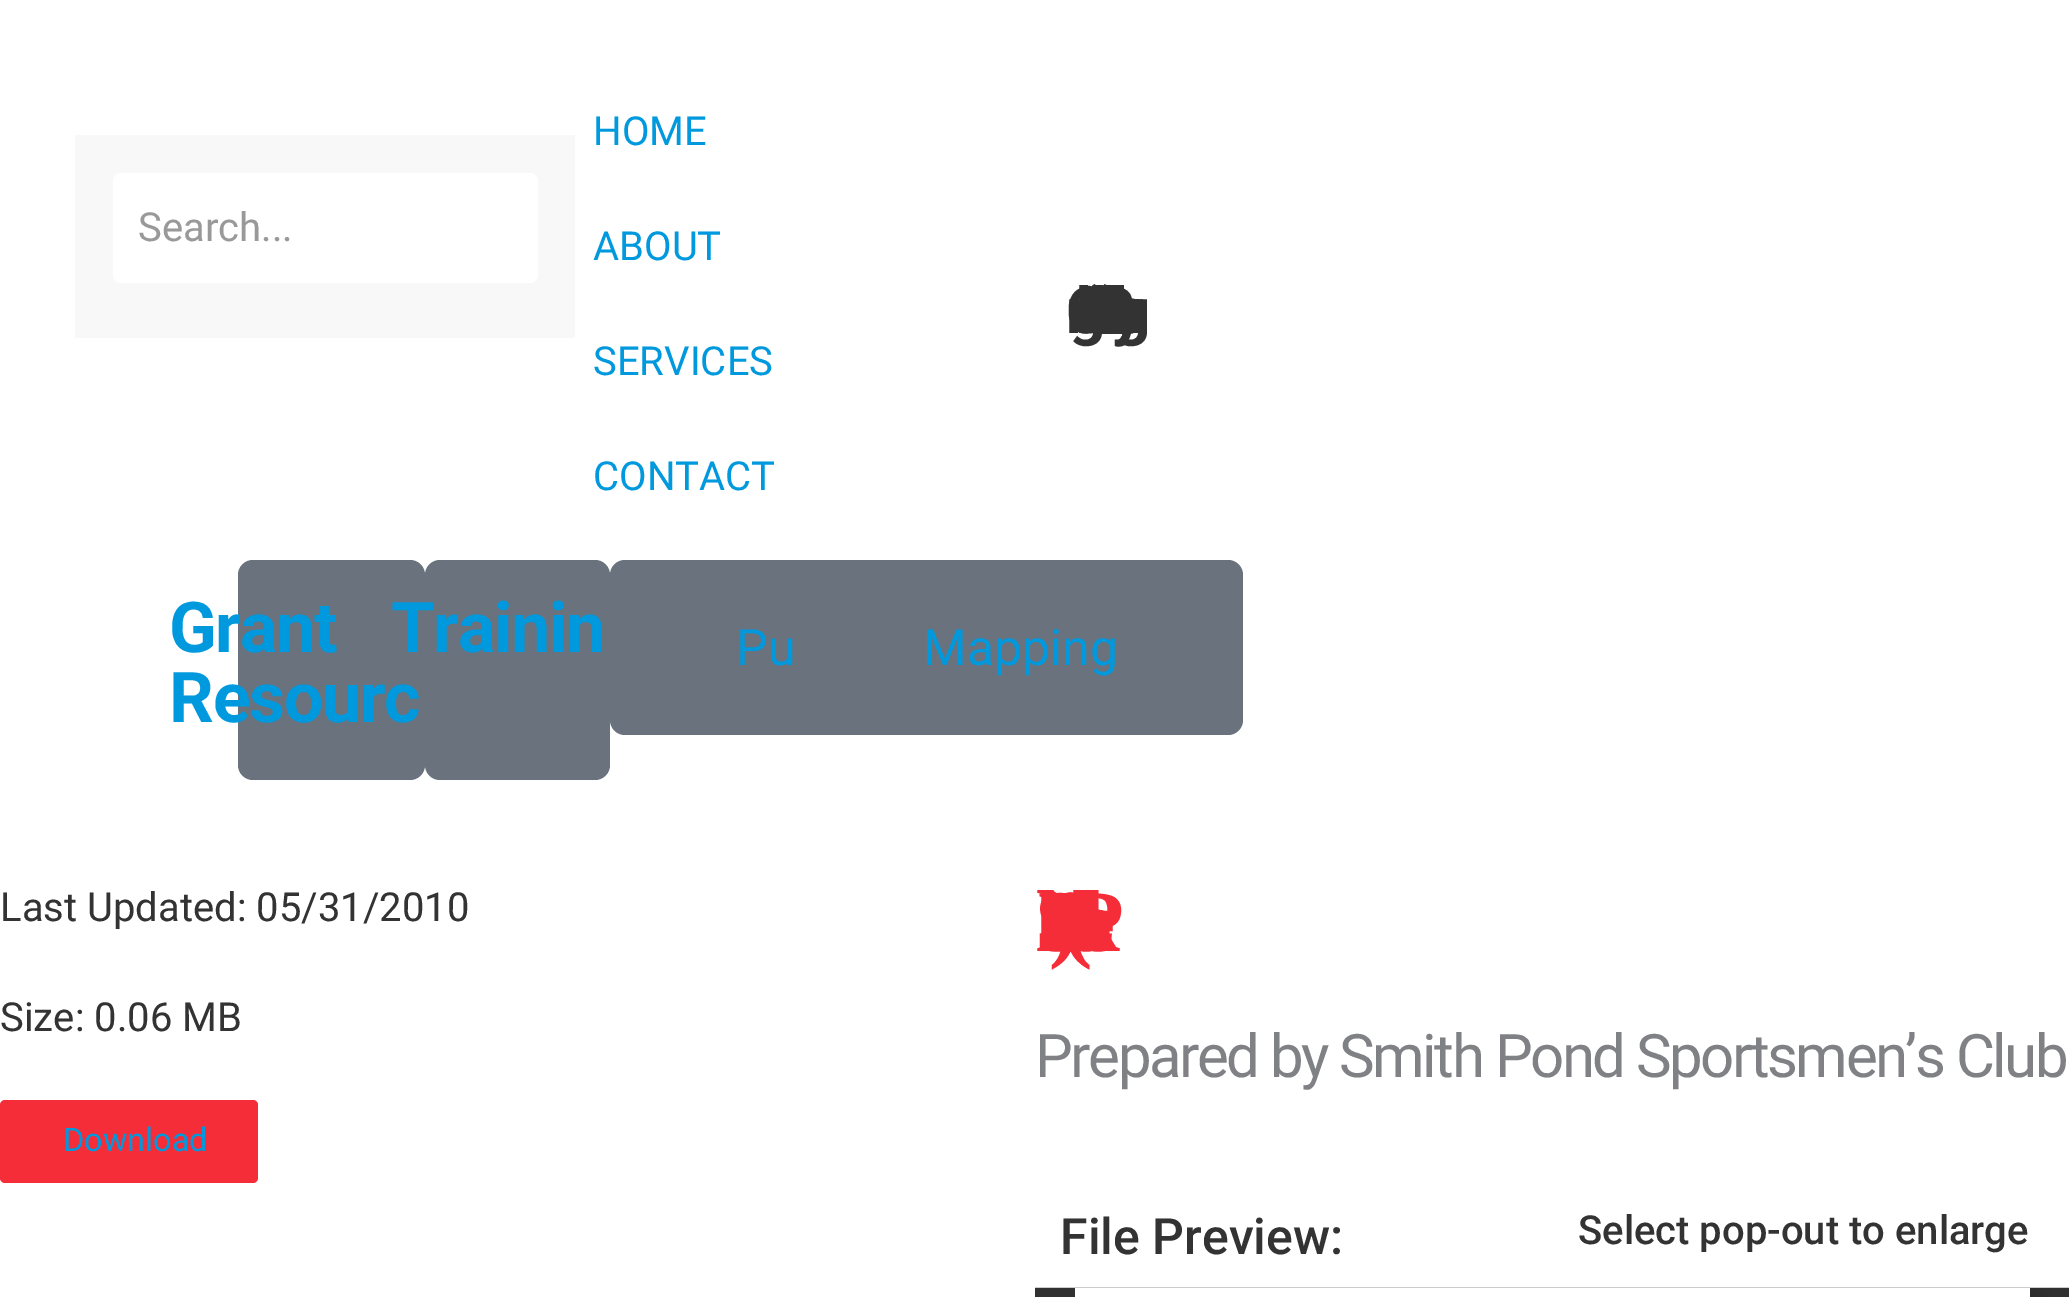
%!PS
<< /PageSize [2069 1297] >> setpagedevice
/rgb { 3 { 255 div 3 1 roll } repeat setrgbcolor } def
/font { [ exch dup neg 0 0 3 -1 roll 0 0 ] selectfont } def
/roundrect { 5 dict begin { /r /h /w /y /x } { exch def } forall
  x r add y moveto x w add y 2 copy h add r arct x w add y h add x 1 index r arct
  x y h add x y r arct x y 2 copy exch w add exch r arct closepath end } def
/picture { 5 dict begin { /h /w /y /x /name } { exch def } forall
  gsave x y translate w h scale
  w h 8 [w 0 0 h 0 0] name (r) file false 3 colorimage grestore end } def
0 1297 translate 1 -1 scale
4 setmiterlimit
255 255 255 rgb
0 0 2069 1297 rectfill
248 248 248 rgb
75 135 500 203 rectfill
255 255 255 rgb
113 173 425 110 8 roundrect fill
105 114 125 rgb
238 560 187 220 15 roundrect fill
425 560 185 220 15 roundrect fill
610 560 528 175 15 roundrect fill
798 560 445 175 15 roundrect fill
244 45 57 rgb
0 1100 258 83 5 roundrect fill
(img/1.rgb) 1035 1287 1034 10 picture
/Roboto-Regular 40 font
153 153 153 rgb
138 241 moveto (Search...) show
0 153 221 rgb
[
  [(HOME) 593 145]
  [(ABOUT) 593 260]
  [(SERVICES) 593 375]
  [(CONTACT) 593 490]
] { aload pop moveto show } forall
/Roboto-Bold 70 font
169 652 moveto -1.25 0 (Grant) ashow
169 722 moveto -1.25 0 (Resourc) ashow
391 652 moveto -1.25 0 (Trainin) ashow
/Roboto-Regular 50 font
736 665 moveto (Pu) show
923 665 moveto (Mapping) show
/Roboto-Bold 64 font
51 51 51 rgb
1085 333 moveto 8.5 0 32 -32 0 (“Serving Chemung, Schuyler and Steuben Counties”) awidthshow
/Roboto-Regular 40 font
0 921 moveto (Last Updated: 05/31/2010) show
0 1031 moveto (Size: 0.06 MB) show
/Roboto-Regular 32.5 font
0 153 221 rgb
63 1151 moveto (Download) show
/LiberationSerif-Bold 88 font
244 45 57 rgb
1035 951 moveto 20.5 0 32 -44 0 (Smith Pond Lake Plan \(2010\)) awidthshow
/Roboto-Regular 60 font
128 129 133 rgb
1035 1077 moveto -2.5 0 (Prepared by Smith Pond Sportsmen’s Club) ashow
/Roboto-Medium 50 font
51 51 51 rgb
1060 1254 moveto (File Preview:) show
/Roboto-Medium 40 font
1578 1244 moveto (Select pop-out to enlarge) show
showpage
